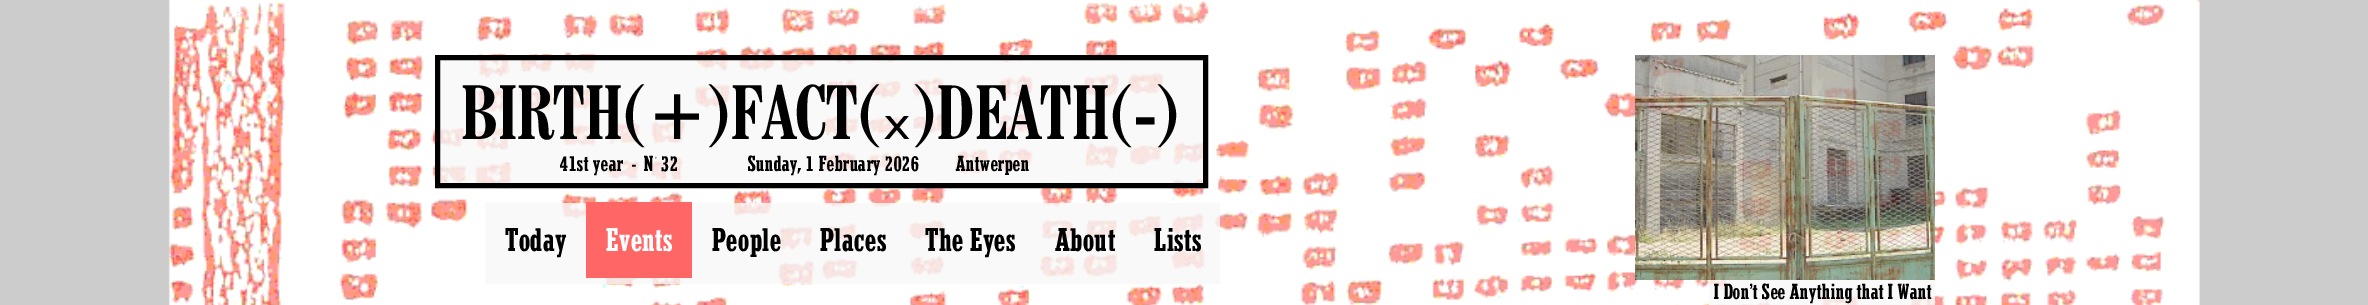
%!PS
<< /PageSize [2368 305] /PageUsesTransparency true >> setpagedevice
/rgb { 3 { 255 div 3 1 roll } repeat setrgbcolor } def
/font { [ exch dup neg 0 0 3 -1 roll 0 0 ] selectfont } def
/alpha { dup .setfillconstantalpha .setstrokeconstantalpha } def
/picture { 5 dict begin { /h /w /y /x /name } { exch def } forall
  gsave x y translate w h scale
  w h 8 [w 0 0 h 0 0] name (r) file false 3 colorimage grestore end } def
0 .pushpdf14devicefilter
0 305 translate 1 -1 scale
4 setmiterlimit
255 255 255 rgb
0 0 2368 305 rectfill
(img/1.rgb) 0 0 2368 305 picture
0.8 alpha
248 248 248 rgb
437.5 57.5 moveto 1205.5 57.5 lineto 1205.5 185.5 lineto 437.5 185.5 lineto closepath fill
1 alpha
0 0 0 rgb
5 setlinewidth
437.5 57.5 moveto 1205.5 57.5 lineto 1205.5 185.5 lineto 437.5 185.5 lineto closepath stroke
(img/2.rgb) 1635 55 300 225 picture
0.8 alpha
[
  [485 203 735 81 248 248 248]
] { aload pop rgb rectfill } forall
1 alpha
[
  [586 202 106 76 255 102 102]
] { aload pop rgb rectfill } forall
0.8 alpha
[
  [1709 280 226 25 248 248 248]
] { aload pop rgb rectfill } forall
/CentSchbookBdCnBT-Bold 75 font
1 alpha
0 0 0 rgb
461 139 moveto (BIRTH\(+\)FACT\() show
/DejaVuSans-Regular 75 font
880 139 moveto (᙮) show
/CentSchbookBdCnBT-Bold 75 font
914 139 moveto (\)DEATH\(-\)) show
/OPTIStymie-Bold 20 font
559 171 moveto (41st year  -  N° 32                 Sunday, 1 February 2026         Antwerpen) show
/OPTIStymie-Bold 30 font
504 251 moveto (Today) show
255 255 255 rgb
605 251 moveto (Events) show
0 0 0 rgb
[
  [(People) 711 251]
  [(Places) 819 251]
  [(The Eyes) 924 251]
  [(About) 1054 251]
  [(Lists) 1153 251]
] { aload pop moveto show } forall
/OPTIStymie-Bold 20 font
1713 299 moveto (I Don't See Anything that I Want) show
.poppdf14devicefilter showpage
